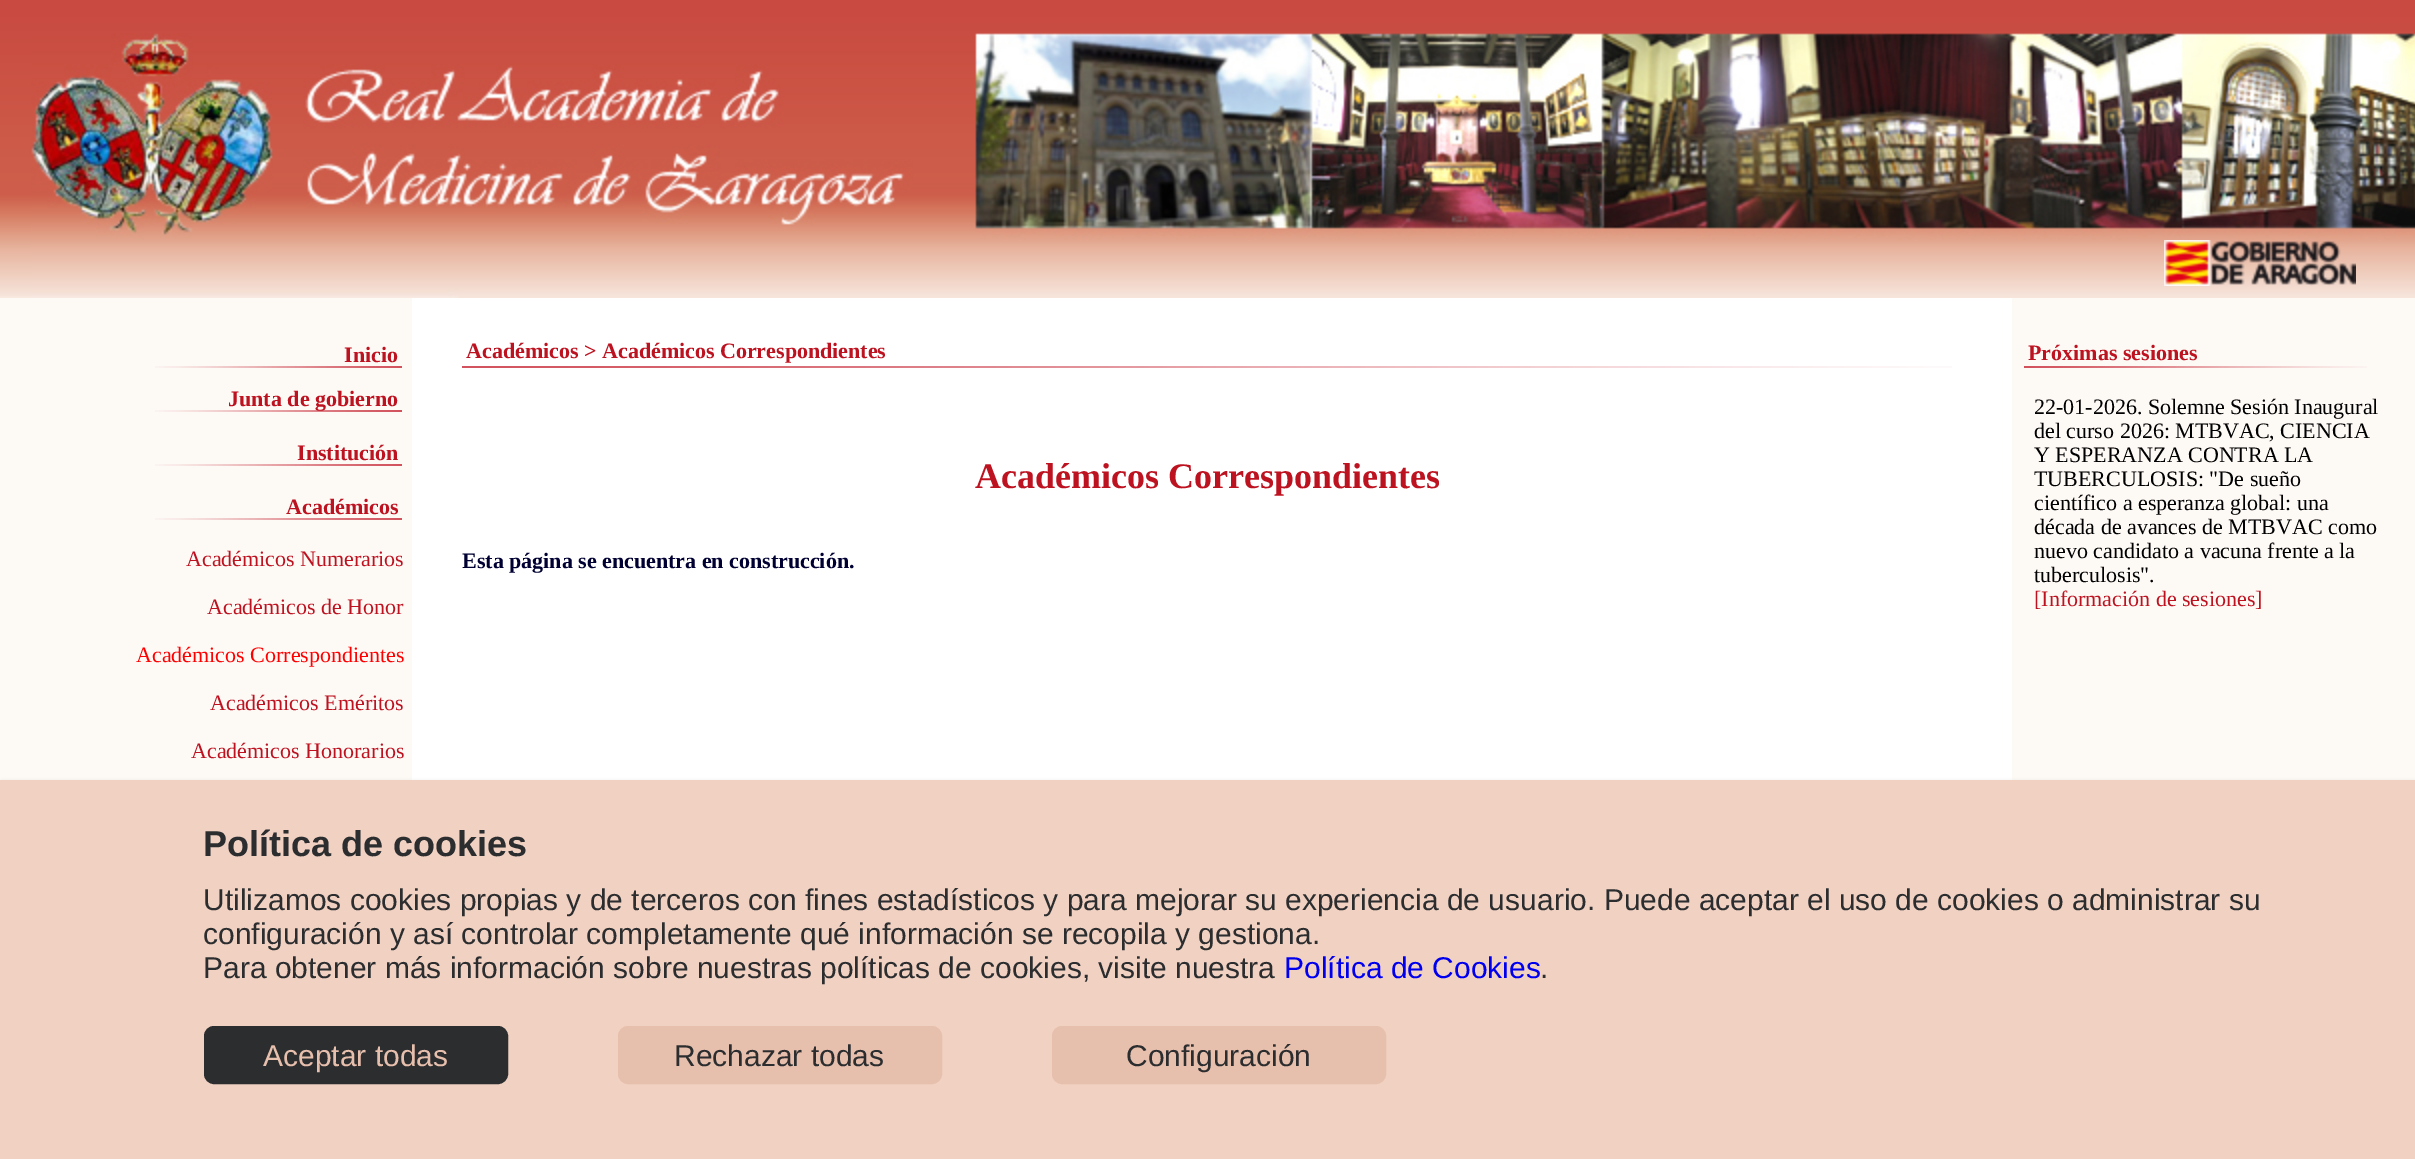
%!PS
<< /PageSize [2415 1159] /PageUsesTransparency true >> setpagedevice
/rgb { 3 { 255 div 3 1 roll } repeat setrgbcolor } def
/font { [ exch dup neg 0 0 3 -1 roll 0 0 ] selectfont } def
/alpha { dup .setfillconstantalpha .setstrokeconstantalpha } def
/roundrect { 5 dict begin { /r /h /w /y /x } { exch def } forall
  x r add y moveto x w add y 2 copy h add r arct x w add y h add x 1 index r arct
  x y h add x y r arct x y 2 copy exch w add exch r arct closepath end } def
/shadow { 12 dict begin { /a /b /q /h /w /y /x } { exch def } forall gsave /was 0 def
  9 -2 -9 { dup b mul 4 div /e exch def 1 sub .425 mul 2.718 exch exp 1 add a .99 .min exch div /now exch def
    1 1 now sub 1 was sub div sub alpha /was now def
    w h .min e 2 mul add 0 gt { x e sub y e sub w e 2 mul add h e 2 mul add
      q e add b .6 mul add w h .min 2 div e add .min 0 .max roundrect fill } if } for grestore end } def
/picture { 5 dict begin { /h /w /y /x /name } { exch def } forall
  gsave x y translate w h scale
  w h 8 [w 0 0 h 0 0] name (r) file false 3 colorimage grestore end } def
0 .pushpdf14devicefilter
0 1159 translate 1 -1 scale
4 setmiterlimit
253 249 245 rgb
0 0 2415 1159 rectfill
(img/1.rgb) 0 0 2415 298 picture
(img/2.rgb) 31 33 2384 265 picture
(img/3.rgb) 2164 240 192 46 picture
(img/4.rgb) 155 366 247 2 picture
(img/4.rgb) 155 410 247 2 picture
(img/4.rgb) 155 464 247 2 picture
(img/4.rgb) 155 518 247 2 picture
255 255 255 rgb
412 298 1600 482 rectfill
(img/5.rgb) 462 366 1490 2 picture
(img/6.rgb) 2024 366 343 2 picture
0 0 0 rgb
2 782 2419 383 0 2 0.2 shadow
241 209 194 rgb
0 780 2415 379 rectfill
43 45 47 rgb
205 1027 302 56 9 roundrect gsave fill grestore
2 setlinewidth
stroke
231 191 173 rgb
619 1027 322 56 9 roundrect gsave fill grestore
stroke
1053 1027 332 56 9 roundrect gsave fill grestore
stroke
/LiberationSerif-Bold 22 font
189 18 32 rgb
[
  [(Inicio) 344 362]
  [(Junta de gobierno) 228 406]
  [(Institución) 297 460]
  [(Académicos) 286 514]
] { aload pop moveto show } forall
/LiberationSerif-Regular 22 font
186 566 moveto (Académicos Numerarios) show
207 614 moveto (Académicos de Honor) show
255 0 0 rgb
136 662 moveto (Académicos Correspondientes) show
189 18 32 rgb
210 710 moveto (Académicos Eméritos) show
191 758 moveto (Académicos Honorarios) show
/LiberationSerif-Bold 22 font
466 358 moveto (Académicos > Académicos Correspondientes) show
/LiberationSerif-Bold 36 font
975 488 moveto (Académicos Correspondientes) show
/LiberationSerif-Bold 22 font
0 0 50 rgb
462 568 moveto (Esta página se encuentra en construcción.) show
189 18 32 rgb
2028 360 moveto (Próximas sesiones) show
/LiberationSerif-Regular 22 font
0 0 0 rgb
[
  [(22-01-2026. Solemne Sesión Inaugural) 2034 414]
  [(del curso 2026: MTBVAC, CIENCIA) 2034 438]
  [(Y ESPERANZA CONTRA LA) 2034 462]
  [(TUBERCULOSIS: "De sueño) 2034 486]
  [(científico a esperanza global: una) 2034 510]
  [(década de avances de MTBVAC como) 2034 534]
  [(nuevo candidato a vacuna frente a la) 2034 558]
  [(tuberculosis".) 2034 582]
] { aload pop moveto show } forall
189 18 32 rgb
2034 606 moveto ([Información de sesiones]) show
/LiberationSans-Bold 36 font
43 45 47 rgb
203 856 moveto (Política de cookies) show
/LiberationSans-Regular 30 font
[
  [(Utilizamos cookies propias y de terceros con fines estadísticos y para mejorar su experiencia de usuario. Puede aceptar el uso de cookies o administrar su) 203 910]
  [(configuración y así controlar completamente qué información se recopila y gestiona.) 203 944]
  [(Para obtener más información sobre nuestras políticas de cookies, visite nuestra) 203 978]
] { aload pop moveto show } forall
0 0 238 rgb
1284 978 moveto (Política de Cookies) show
43 45 47 rgb
1540 978 moveto (.) show
231 191 173 rgb
263 1066 moveto (Aceptar todas) show
43 45 47 rgb
674 1066 moveto (Rechazar todas) show
1126 1066 moveto (Configuración) show
.poppdf14devicefilter showpage
